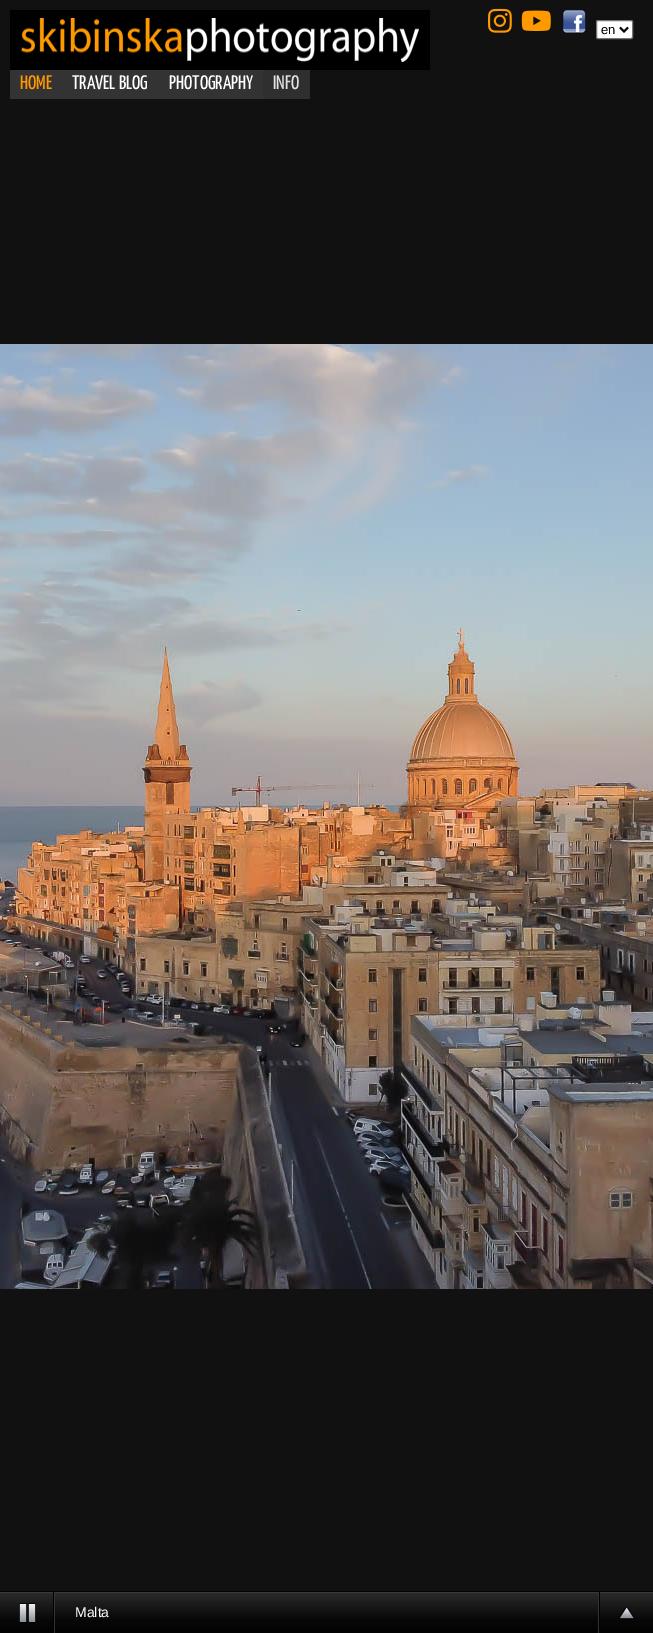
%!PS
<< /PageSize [653 1633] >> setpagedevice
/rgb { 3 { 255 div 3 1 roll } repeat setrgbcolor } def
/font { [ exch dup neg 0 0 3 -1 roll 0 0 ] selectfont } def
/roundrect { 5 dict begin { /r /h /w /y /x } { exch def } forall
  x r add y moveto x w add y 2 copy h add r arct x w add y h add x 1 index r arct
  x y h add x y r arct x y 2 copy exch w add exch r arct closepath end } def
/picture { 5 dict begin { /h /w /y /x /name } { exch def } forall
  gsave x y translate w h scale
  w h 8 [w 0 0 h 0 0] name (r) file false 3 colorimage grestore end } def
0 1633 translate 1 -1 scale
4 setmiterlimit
17 17 17 rgb
0 0 653 1633 rectfill
(img/1.rgb) 488 8 24 25 picture
(img/2.rgb) 521 10 30 21 picture
(img/3.rgb) 563 10 23 24 picture
255 255 255 rgb
596.5 20.5 36 18 1.5 roundrect gsave fill grestore
118 118 118 rgb
stroke
0 0 0 rgb
2 setlinewidth
620 27.5 moveto 624 31.5 lineto 628 27.5 lineto stroke
10 10 420 60 rectfill
(img/4.rgb) 21 18 398 44 picture
51 51 51 rgb
10 70 253 29 rectfill
47 47 47 rgb
263 70 47 29 rectfill
(img/5.rgb) 0 1591 653 42 picture
51 51 51 rgb
54 1592 1 41 rectfill
(img/6.rgb) 19 1592 35 36 picture
598 1592 1 41 rectfill
(img/7.rgb) 599 1592 35 36 picture
(img/8.rgb) 0 344 653 945 picture
/LiberationSans-Regular 13 font
0 0 0 rgb
601 34 moveto (en) show
/YanoneKaffeesatz-Regular 19.5 font
255 153 0 rgb
20 89 moveto (HOME) show
255 255 255 rgb
72 89 moveto (TRAVEL BLOG) show
169 89 moveto (PHOTOGRAPHY) show
226 226 226 rgb
273 89 moveto (INFO) show
/LiberationSans-Regular 14 font
255 255 255 rgb
75 1617 moveto (Malta) show
showpage
